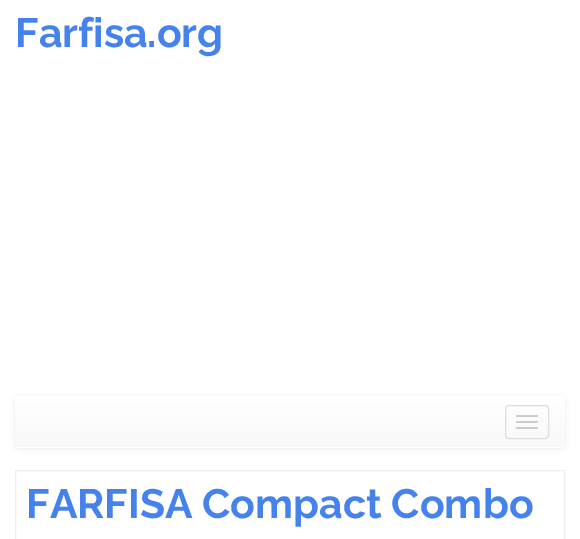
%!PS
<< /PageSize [580 539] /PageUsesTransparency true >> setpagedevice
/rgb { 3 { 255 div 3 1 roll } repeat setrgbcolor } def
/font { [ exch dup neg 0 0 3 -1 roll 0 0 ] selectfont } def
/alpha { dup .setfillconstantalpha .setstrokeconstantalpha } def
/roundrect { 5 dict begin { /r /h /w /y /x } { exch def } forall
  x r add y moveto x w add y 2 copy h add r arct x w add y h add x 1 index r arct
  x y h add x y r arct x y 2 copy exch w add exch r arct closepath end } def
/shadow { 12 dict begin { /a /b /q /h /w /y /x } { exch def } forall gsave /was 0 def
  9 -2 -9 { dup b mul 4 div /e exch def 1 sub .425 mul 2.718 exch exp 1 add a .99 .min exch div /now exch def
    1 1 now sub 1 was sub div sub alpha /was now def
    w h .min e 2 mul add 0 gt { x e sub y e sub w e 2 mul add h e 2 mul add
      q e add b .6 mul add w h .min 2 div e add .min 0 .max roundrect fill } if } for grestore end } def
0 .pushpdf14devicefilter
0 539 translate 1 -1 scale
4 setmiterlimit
255 255 255 rgb
0 0 580 539 rectfill
0 0 0 rgb
15 397 550 52 4 2.5 0.07 shadow
255 255 255 rgb
15 396 550 52 4 roundrect fill
gsave
15 396 550 52 4 roundrect clip newpath
gsave 15 397 moveto 565 397 lineto 565 447 lineto 15 447 lineto closepath clip newpath
<< /ShadingType 2 /ColorSpace /DeviceRGB /Coords [290 397 290 447] /Extend [true true] /Function << /FunctionType 2 /Domain [0 1] /C0 [1 1 1] /C1 [0.973 0.973 0.973] /N 1 >> >> shfill grestore
grestore
221 221 221 rgb
505.5 405.5 43 33 3.5 roundrect stroke
204 204 204 rgb
516 415 22 2 1 roundrect fill
516 421 22 2 1 roundrect fill
516 427 22 2 1 roundrect fill
238 238 238 rgb
15.5 470.5 549 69 rectstroke
/Raleway-Bold 41 font
69 130 236 rgb
15 47 moveto (Farfisa.org) show
26 518 moveto (FARFISA Compact Combo) show
.poppdf14devicefilter showpage
